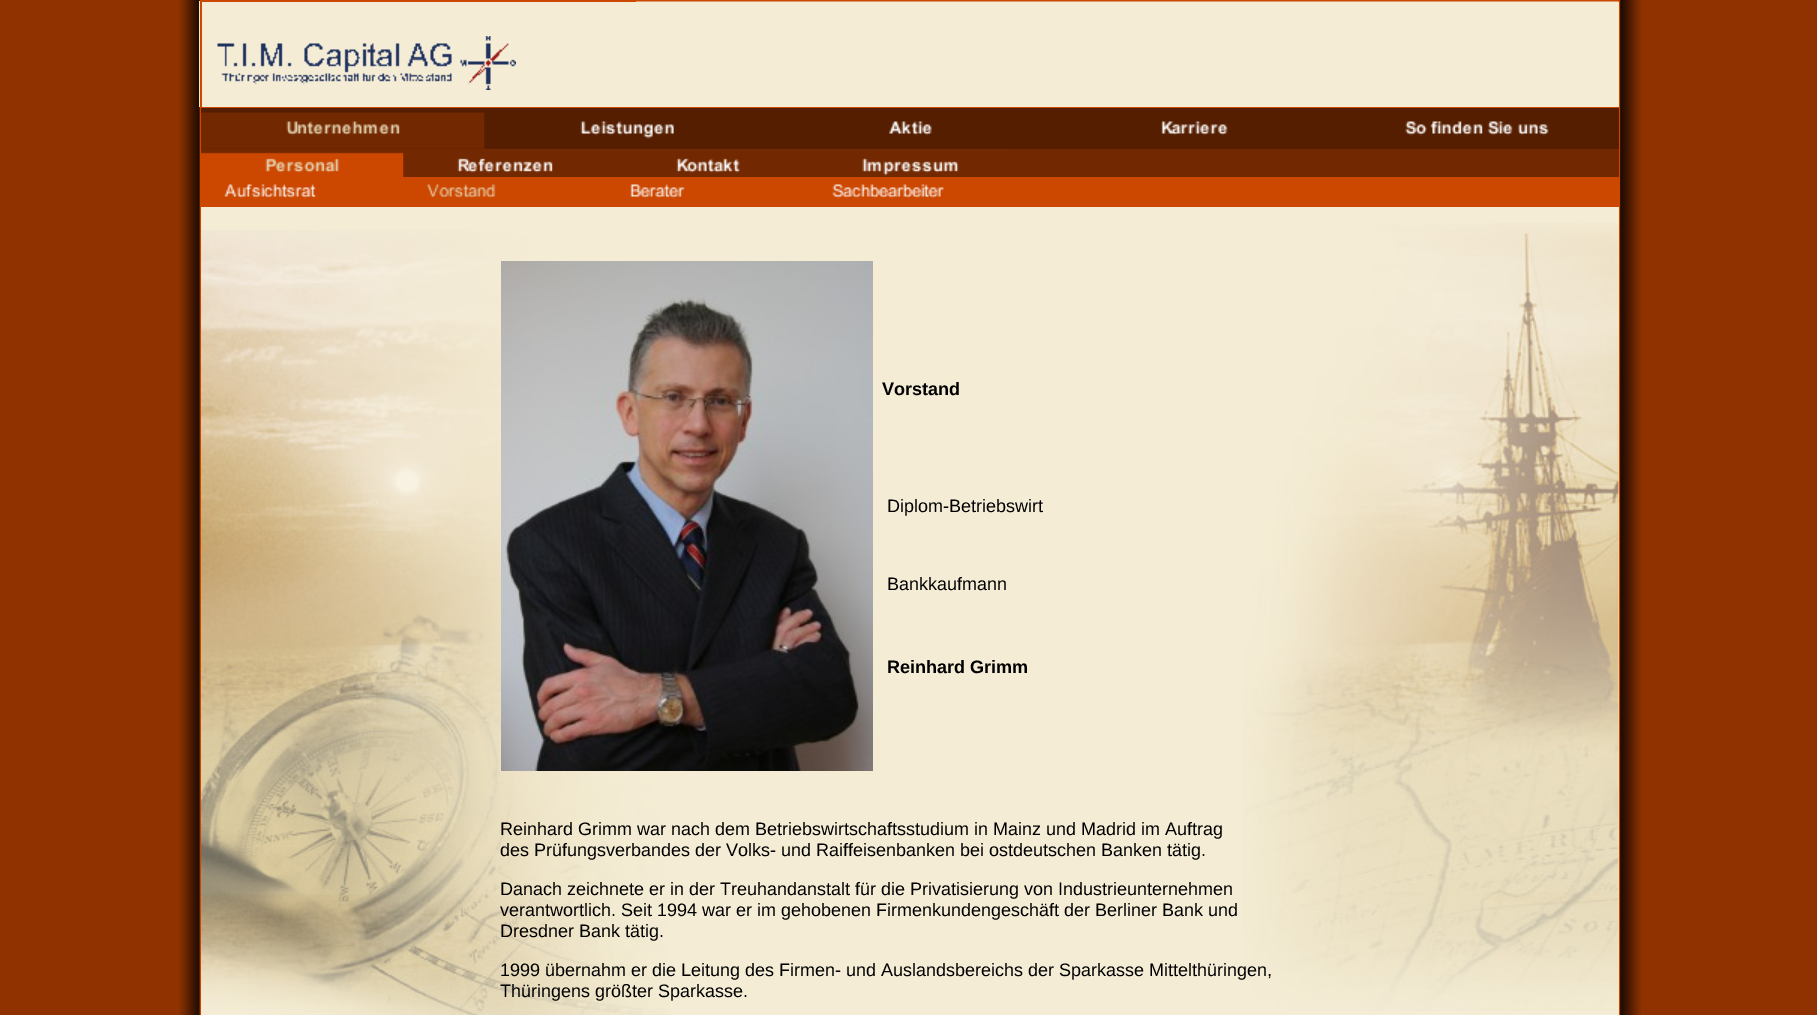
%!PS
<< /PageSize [1817 1015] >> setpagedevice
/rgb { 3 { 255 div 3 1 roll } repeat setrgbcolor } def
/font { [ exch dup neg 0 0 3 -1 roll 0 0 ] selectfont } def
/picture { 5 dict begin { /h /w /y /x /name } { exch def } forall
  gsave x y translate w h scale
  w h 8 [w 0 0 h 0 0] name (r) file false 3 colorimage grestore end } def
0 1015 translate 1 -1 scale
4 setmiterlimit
143 50 0 rgb
0 0 1817 1015 rectfill
(img/1.rgb) 179 0 21 1015 picture
[
  [199 1 1420 106 244 236 213]
  [200 0 1420 2 204 71 0]
  [1619 0 2 1015 204 71 0]
  [200 0 2 1015 204 71 0]
] { aload pop rgb rectfill } forall
(img/2.rgb) 636 1 983 1 picture
(img/3.rgb) 217 36 299 54 picture
[
  [201 107 1418 1 204 71 0]
  [201 206 1418 1 204 71 0]
  [201 108 1418 41 85 30 0]
  [403 149 1216 28 114 40 0]
] { aload pop rgb rectfill } forall
(img/9.rgb) 201 148 203 29 picture
(img/10.rgb) 403 148 203 29 picture
(img/4.rgb) 201 112 284 37 picture
(img/11.rgb) 606 148 203 25 picture
(img/5.rgb) 484 113 284 36 picture
(img/12.rgb) 808 148 203 28 picture
(img/6.rgb) 768 121 243 28 picture
(img/7.rgb) 1161 121 67 15 picture
(img/8.rgb) 1405 121 144 15 picture
204 71 0 rgb
202 177 1417 29 rectfill
(img/13.rgb) 224 184 92 15 picture
(img/14.rgb) 427 184 69 14 picture
(img/15.rgb) 630 184 55 15 picture
(img/16.rgb) 832 184 112 15 picture
244 236 213 rgb
201 207 1418 808 rectfill
(img/17.rgb) 201 230 469 785 picture
(img/18.rgb) 1243 223 376 788 picture
(img/19.rgb) 501 261 372 510 picture
(img/20.rgb) 1620 0 22 1015 picture
/LiberationSans-Bold 18 font
0 0 0 rgb
882 395 moveto (Vorstand) show
/LiberationSans-Regular 18 font
887 512 moveto (Diplom-Betriebswirt) show
887 590 moveto (Bankkaufmann) show
/LiberationSans-Bold 18 font
887 673 moveto (Reinhard Grimm) show
/LiberationSans-Regular 18 font
[
  [(Reinhard Grimm war nach dem Betriebswirtschaftsstudium in Mainz und Madrid im Auftrag) 500 835]
  [(des Prüfungsverbandes der Volks- und Raiffeisenbanken bei ostdeutschen Banken tätig.) 500 856]
  [(Danach zeichnete er in der Treuhandanstalt für die Privatisierung von Industrieunternehmen) 500 895]
  [(verantwortlich. Seit 1994 war er im gehobenen Firmenkundengeschäft der Berliner Bank und) 500 916]
  [(Dresdner Bank tätig.) 500 937]
  [(1999 übernahm er die Leitung des Firmen- und Auslandsbereichs der Sparkasse Mittelthüringen,) 500 976]
  [(Thüringens größter Sparkasse.) 500 997]
] { aload pop moveto show } forall
showpage
